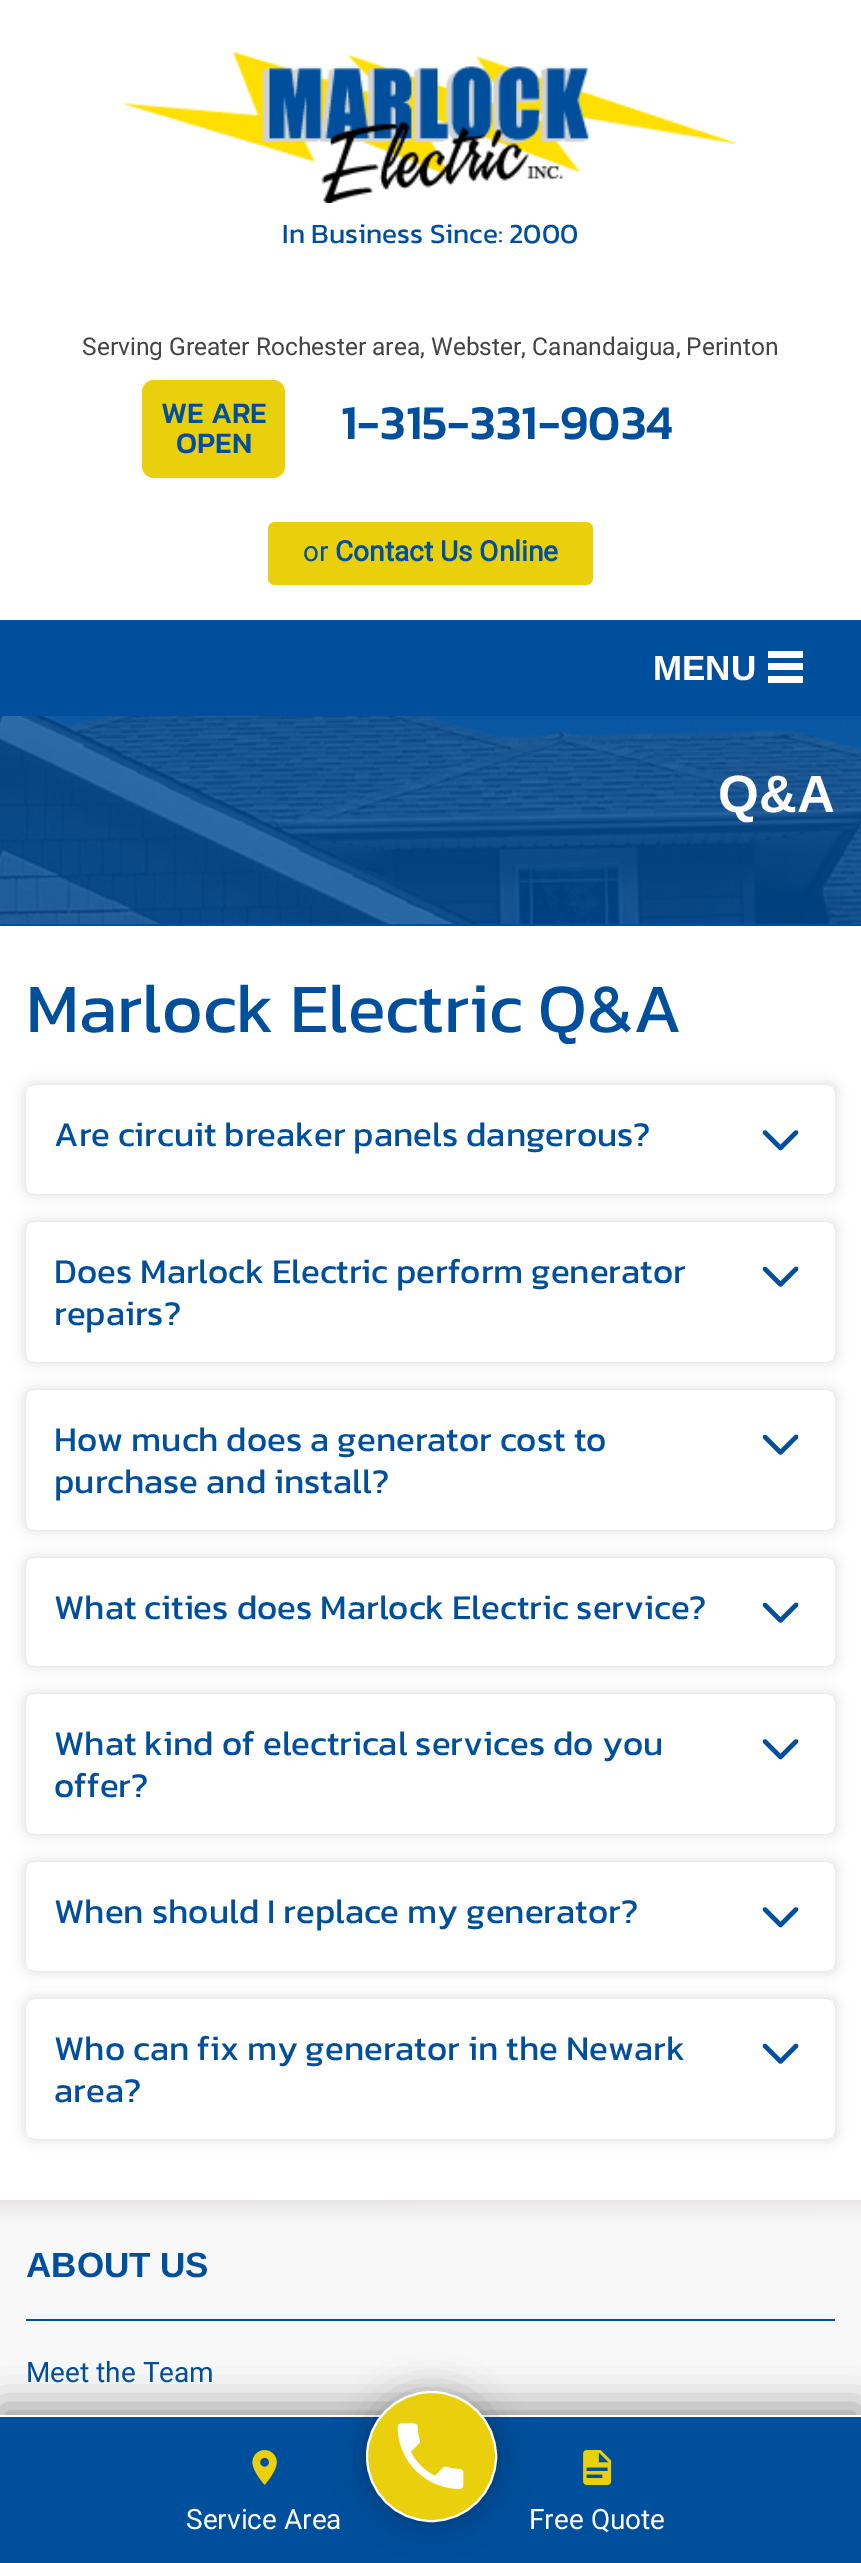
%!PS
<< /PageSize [861 2563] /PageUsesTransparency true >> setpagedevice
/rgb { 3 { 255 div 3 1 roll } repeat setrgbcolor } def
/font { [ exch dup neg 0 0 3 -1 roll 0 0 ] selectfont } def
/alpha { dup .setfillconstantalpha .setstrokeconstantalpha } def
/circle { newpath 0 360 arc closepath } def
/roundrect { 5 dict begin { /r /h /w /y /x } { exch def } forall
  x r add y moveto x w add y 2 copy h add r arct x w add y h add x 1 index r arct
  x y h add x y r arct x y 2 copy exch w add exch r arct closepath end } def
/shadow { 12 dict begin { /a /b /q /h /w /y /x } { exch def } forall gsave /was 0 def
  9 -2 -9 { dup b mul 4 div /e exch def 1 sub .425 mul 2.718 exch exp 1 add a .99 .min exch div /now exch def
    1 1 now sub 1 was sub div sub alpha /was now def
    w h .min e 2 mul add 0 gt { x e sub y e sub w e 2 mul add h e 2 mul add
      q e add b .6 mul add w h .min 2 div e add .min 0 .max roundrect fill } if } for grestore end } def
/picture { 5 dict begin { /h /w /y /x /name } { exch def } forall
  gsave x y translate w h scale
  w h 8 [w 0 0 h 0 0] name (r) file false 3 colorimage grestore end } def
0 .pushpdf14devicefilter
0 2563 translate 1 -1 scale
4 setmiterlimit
255 255 255 rgb
0 0 861 2563 rectfill
(img/1.rgb) 124 52 613 151 picture
234 207 13 rgb
142 380 143 98 12 roundrect fill
268 522 325 63 7 roundrect fill
[
  [0 620 861 96 0 79 156]
  [768 676 35 7 255 255 255]
  [768 663 35 7 255 255 255]
  [768 651 35 7 255 255 255]
] { aload pop rgb rectfill } forall
(img/2.rgb) 0 716 861 208 picture
0 79 156 rgb
0 924 861 2 rectfill
gsave
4 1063 moveto 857 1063 lineto 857 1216 lineto 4 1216 lineto closepath 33 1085 moveto 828 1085 lineto 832 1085 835 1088 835 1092 curveto 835 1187 lineto 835 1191 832 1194 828 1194 curveto 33 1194 lineto 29 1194 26 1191 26 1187 curveto 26 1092 lineto 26 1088 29 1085 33 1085 curveto closepath eoclip newpath
0 0 0 rgb
26 1085 809 109 7 7 0.15 shadow
grestore
4.4 setlinewidth
1 setlinecap
1 setlinejoin
796 1132.5 moveto 780.5 1148 lineto 765 1132.5 lineto stroke
gsave
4 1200 moveto 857 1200 lineto 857 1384 lineto 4 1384 lineto closepath 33 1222 moveto 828 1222 lineto 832 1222 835 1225 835 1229 curveto 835 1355 lineto 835 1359 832 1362 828 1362 curveto 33 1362 lineto 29 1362 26 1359 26 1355 curveto 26 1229 lineto 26 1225 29 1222 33 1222 curveto closepath eoclip newpath
0 0 0 rgb
26 1222 809 140 7 7 0.15 shadow
grestore
796 1269 moveto 780.5 1284.5 lineto 765 1269 lineto stroke
gsave
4 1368 moveto 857 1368 lineto 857 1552 lineto 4 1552 lineto closepath 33 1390 moveto 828 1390 lineto 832 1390 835 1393 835 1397 curveto 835 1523 lineto 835 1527 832 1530 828 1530 curveto 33 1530 lineto 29 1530 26 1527 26 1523 curveto 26 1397 lineto 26 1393 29 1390 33 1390 curveto closepath eoclip newpath
0 0 0 rgb
26 1390 809 140 7 7 0.15 shadow
grestore
796 1437 moveto 780.5 1452.5 lineto 765 1437 lineto stroke
gsave
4 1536 moveto 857 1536 lineto 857 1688 lineto 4 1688 lineto closepath 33 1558 moveto 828 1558 lineto 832 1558 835 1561 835 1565 curveto 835 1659 lineto 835 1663 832 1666 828 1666 curveto 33 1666 lineto 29 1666 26 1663 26 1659 curveto 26 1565 lineto 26 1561 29 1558 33 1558 curveto closepath eoclip newpath
0 0 0 rgb
26 1558 809 108 7 7 0.15 shadow
grestore
796 1605 moveto 780.5 1620.5 lineto 765 1605 lineto stroke
gsave
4 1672 moveto 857 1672 lineto 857 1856 lineto 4 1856 lineto closepath 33 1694 moveto 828 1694 lineto 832 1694 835 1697 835 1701 curveto 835 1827 lineto 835 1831 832 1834 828 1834 curveto 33 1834 lineto 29 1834 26 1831 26 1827 curveto 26 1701 lineto 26 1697 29 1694 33 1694 curveto closepath eoclip newpath
0 0 0 rgb
26 1694 809 140 7 7 0.15 shadow
grestore
796 1741.5 moveto 780.5 1757 lineto 765 1741.5 lineto stroke
gsave
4 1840 moveto 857 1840 lineto 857 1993 lineto 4 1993 lineto closepath 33 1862 moveto 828 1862 lineto 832 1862 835 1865 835 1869 curveto 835 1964 lineto 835 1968 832 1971 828 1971 curveto 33 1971 lineto 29 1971 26 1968 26 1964 curveto 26 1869 lineto 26 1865 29 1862 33 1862 curveto closepath eoclip newpath
0 0 0 rgb
26 1862 809 109 7 7 0.15 shadow
grestore
796 1909.5 moveto 780.5 1925 lineto 765 1909.5 lineto stroke
gsave
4 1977 moveto 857 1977 lineto 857 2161 lineto 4 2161 lineto closepath 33 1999 moveto 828 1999 lineto 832 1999 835 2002 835 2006 curveto 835 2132 lineto 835 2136 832 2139 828 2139 curveto 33 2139 lineto 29 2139 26 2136 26 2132 curveto 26 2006 lineto 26 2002 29 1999 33 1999 curveto closepath eoclip newpath
0 0 0 rgb
26 1999 809 140 7 7 0.15 shadow
grestore
796 2046 moveto 780.5 2061.5 lineto 765 2046 lineto stroke
gsave 0 2202 moveto 861 2202 lineto 861 2415 lineto 0 2415 lineto closepath clip newpath
<< /ShadingType 2 /ColorSpace /DeviceRGB /Coords [430 2202 431 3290] /Extend [true true] /Function << /FunctionType 3 /Domain [0 1] /Functions [<< /FunctionType 2 /Domain [0 1] /C0 [0.918 0.91 0.91] /C1 [0.973 0.973 0.973] /N 1 >> << /FunctionType 2 /Domain [0 1] /C0 [0.973 0.973 0.973] /C1 [0.973 0.973 0.973] /N 1 >>] /Bounds [0.02] /Encode [0 1 0 1] >> >> shfill grestore
230 230 230 rgb
0 2200 861 2 rectfill
0 79 156 rgb
26 2319 809 2 rectfill
0 0 0 rgb
0 2406 861 149 0 17.5 0.35 shadow
0 79 156 rgb
0 2417 861 146 rectfill
255 255 255 rgb
0 2415 861 2 rectfill
(img/3.rgb) 252 2450 25 35 picture
gsave
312 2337 moveto 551 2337 lineto 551 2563 lineto 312 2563 lineto closepath 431.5 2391 moveto 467.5 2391 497 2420.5 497 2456.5 curveto 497 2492.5 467.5 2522 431.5 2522 curveto 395.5 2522 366 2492.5 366 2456.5 curveto 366 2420.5 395.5 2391 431.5 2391 curveto closepath eoclip newpath
0 0 0 rgb
366 2391 131 131 65.5 17.5 0.25 shadow
grestore
234 207 13 rgb
431.5 2456.5 64.5 circle gsave fill grestore
255 255 255 rgb
2 setlinewidth
0 setlinecap
0 setlinejoin
stroke
(img/4.rgb) 397 2423 67 66 picture
(img/5.rgb) 583 2450 29 35 picture
/Kanit-Regular 28 font
0 79 156 rgb
282 243 moveto (In Business Since: 2000) show
/Roboto-Regular 24.5 font
68 68 68 rgb
82 355 moveto (Serving Greater Rochester area, Webster, Canandaigua, Perinton) show
/Kanit-Medium 30 font
0 79 156 rgb
161 423 moveto (WE ARE) show
176 453 moveto (OPEN) show
/Kanit-Medium 49 font
341 439 moveto (1-315-331-9034) show
/Roboto-Regular 28 font
303 561 moveto (or) show
/Roboto-Bold 28 font
335 561 moveto (Contact Us Online) show
/LiberationSans-Bold 35 font
255 255 255 rgb
653 680 moveto (MENU) show
/LiberationSans-Bold 52.5 font
718 812 moveto (Q&A) show
/Kanit-Regular 70 font
0 79 156 rgb
26 1032 moveto (Marlock Electric Q&A) show
/Kanit-Regular 35 font
[
  [(Are circuit breaker panels dangerous?) 54 1146]
  [(Does Marlock Electric perform generator) 54 1283]
  [(repairs?) 54 1325]
  [(How much does a generator cost to) 54 1451]
  [(purchase and install?) 54 1493]
  [(What cities does Marlock Electric service?) 54 1619]
  [(What kind of electrical services do you) 54 1755]
  [(offer?) 54 1797]
  [(When should I replace my generator?) 54 1923]
  [(Who can fix my generator in the Newark) 54 2060]
  [(area?) 54 2102]
] { aload pop moveto show } forall
/LiberationSans-Bold 35 font
26 2277 moveto (ABOUT US) show
/Roboto-Regular 28 font
26 2382 moveto (Meet the Team) show
255 255 255 rgb
186 2529 moveto (Service Area) show
529 2529 moveto (Free Quote) show
.poppdf14devicefilter showpage
